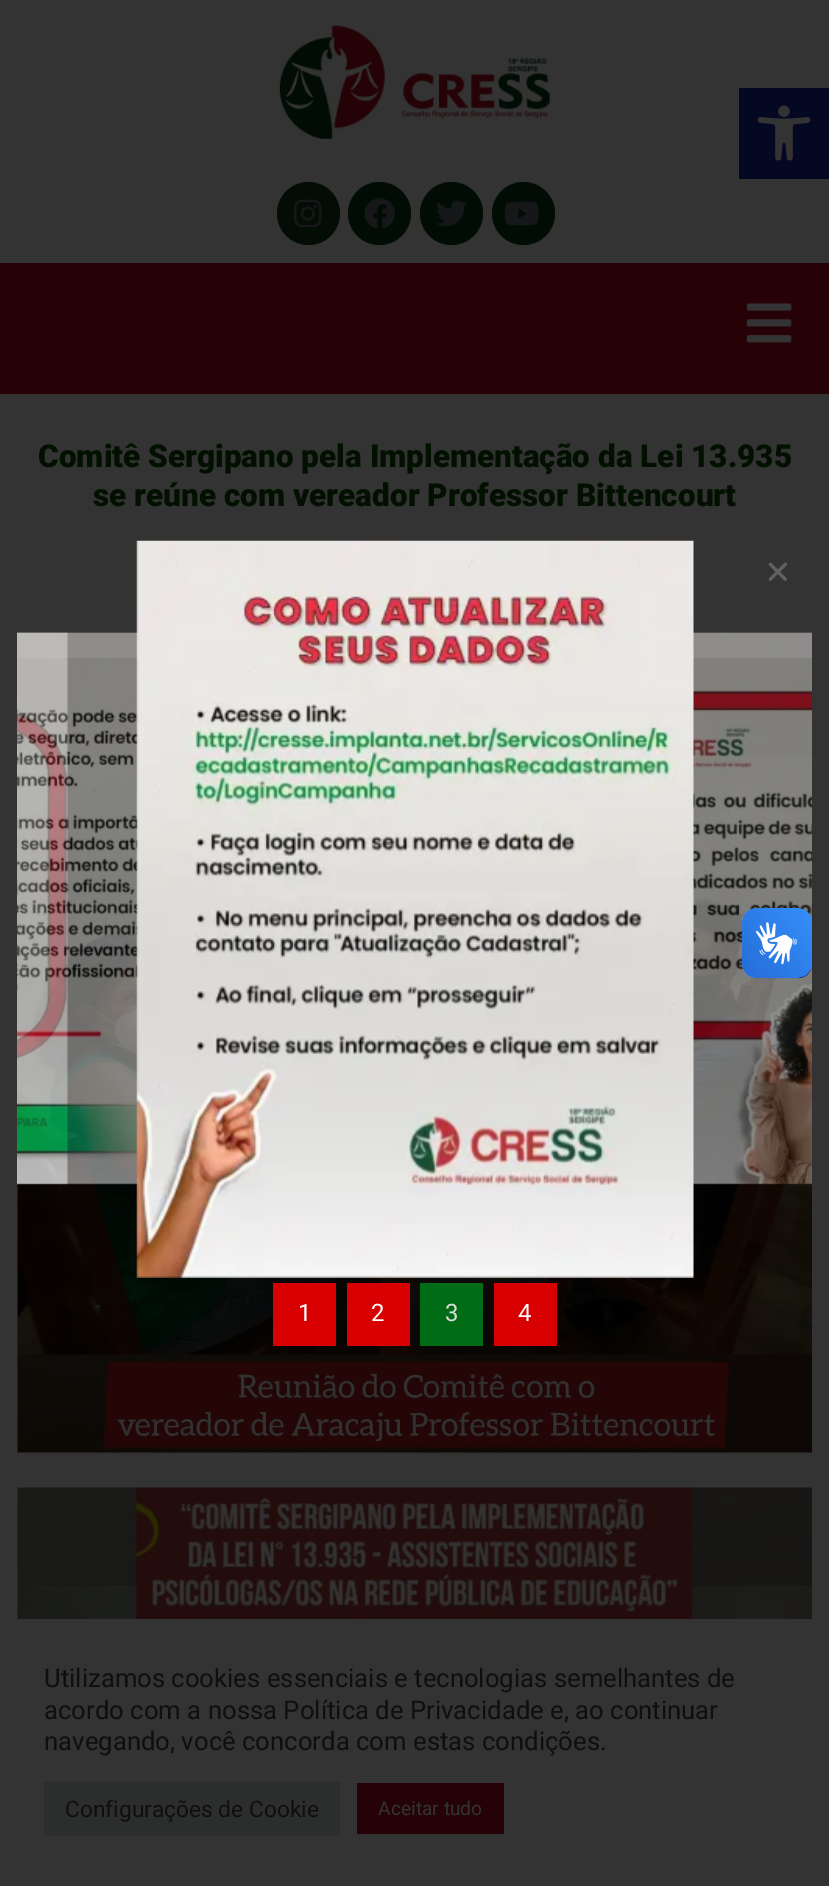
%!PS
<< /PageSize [829 1886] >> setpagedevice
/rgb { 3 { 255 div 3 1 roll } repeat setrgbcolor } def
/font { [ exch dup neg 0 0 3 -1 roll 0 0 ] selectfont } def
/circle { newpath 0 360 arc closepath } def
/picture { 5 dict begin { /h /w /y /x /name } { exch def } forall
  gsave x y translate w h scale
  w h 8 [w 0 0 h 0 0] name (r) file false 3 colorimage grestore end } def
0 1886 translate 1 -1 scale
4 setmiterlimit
51 51 51 rgb
0 0 829 1886 rectfill
(img/1.rgb) 279 25 271 114 picture
4 12 6 rgb
308.5 213.5 31.5 circle fill
(img/2.rgb) 294 199 28 29 picture
0 12 4 rgb
379.5 213.5 31.5 circle fill
(img/3.rgb) 364 198 31 31 picture
451.5 213.5 31.5 circle fill
(img/4.rgb) 436 200 31 27 picture
523.5 213.5 31.5 circle fill
(img/5.rgb) 504 201 35 25 picture
38 2 6 rgb
0 263 829 131 rectfill
(img/6.rgb) 746 303 46 40 picture
5 8 35 rgb
739 88 90 91 rectfill
(img/7.rgb) 757 105 54 56 picture
(img/8.rgb) 17 658 795 795 picture
(img/9.rgb) 17 1487 795 132 picture
(img/16.rgb) 693 632 119 553 picture
(img/10.rgb) 742 908 70 71 picture
(img/11.rgb) 742 908 70 70 picture
(img/12.rgb) 768 562 20 19 picture
(img/13.rgb) 17 632 51 553 picture
(img/15.rgb) 17 632 122 553 picture
(img/14.rgb) 136 540 558 738 picture
[
  [273 1283 63 63 216 0 0]
  [347 1283 63 63 216 0 0]
  [420 1283 63 63 0 109 22]
  [494 1283 63 63 216 0 0]
  [44 1782 296 54 44 45 45]
  [357 1783 147 51 37 2 6]
] { aload pop rgb rectfill } forall
/Roboto-Black 31.5 font
2 16 0 rgb
38 467 moveto (Comitê Sergipano pela Implementação da Lei 13.935) show
93 506 moveto (se reúne com vereador Professor Bittencourt) show
/Roboto-Regular 24 font
255 255 255 rgb
298 1321 moveto (1) show
371 1321 moveto (2) show
221 221 221 rgb
445 1321 moveto (3) show
255 255 255 rgb
518 1321 moveto (4) show
/Roboto-Regular 25.7 font
15 15 15 rgb
[
  [(Utilizamos cookies essenciais e tecnologias semelhantes de) 44 1687]
  [(acordo com a nossa Política de Privacidade e, ao continuar) 44 1719]
  [(navegando, você concorda com estas condições.) 44 1750]
] { aload pop moveto show } forall
/Roboto-Regular 22.75 font
65 1817 moveto (Configurações de Cookie) show
/Roboto-Regular 19.25 font
51 51 51 rgb
378 1815 moveto (Aceitar tudo) show
showpage
